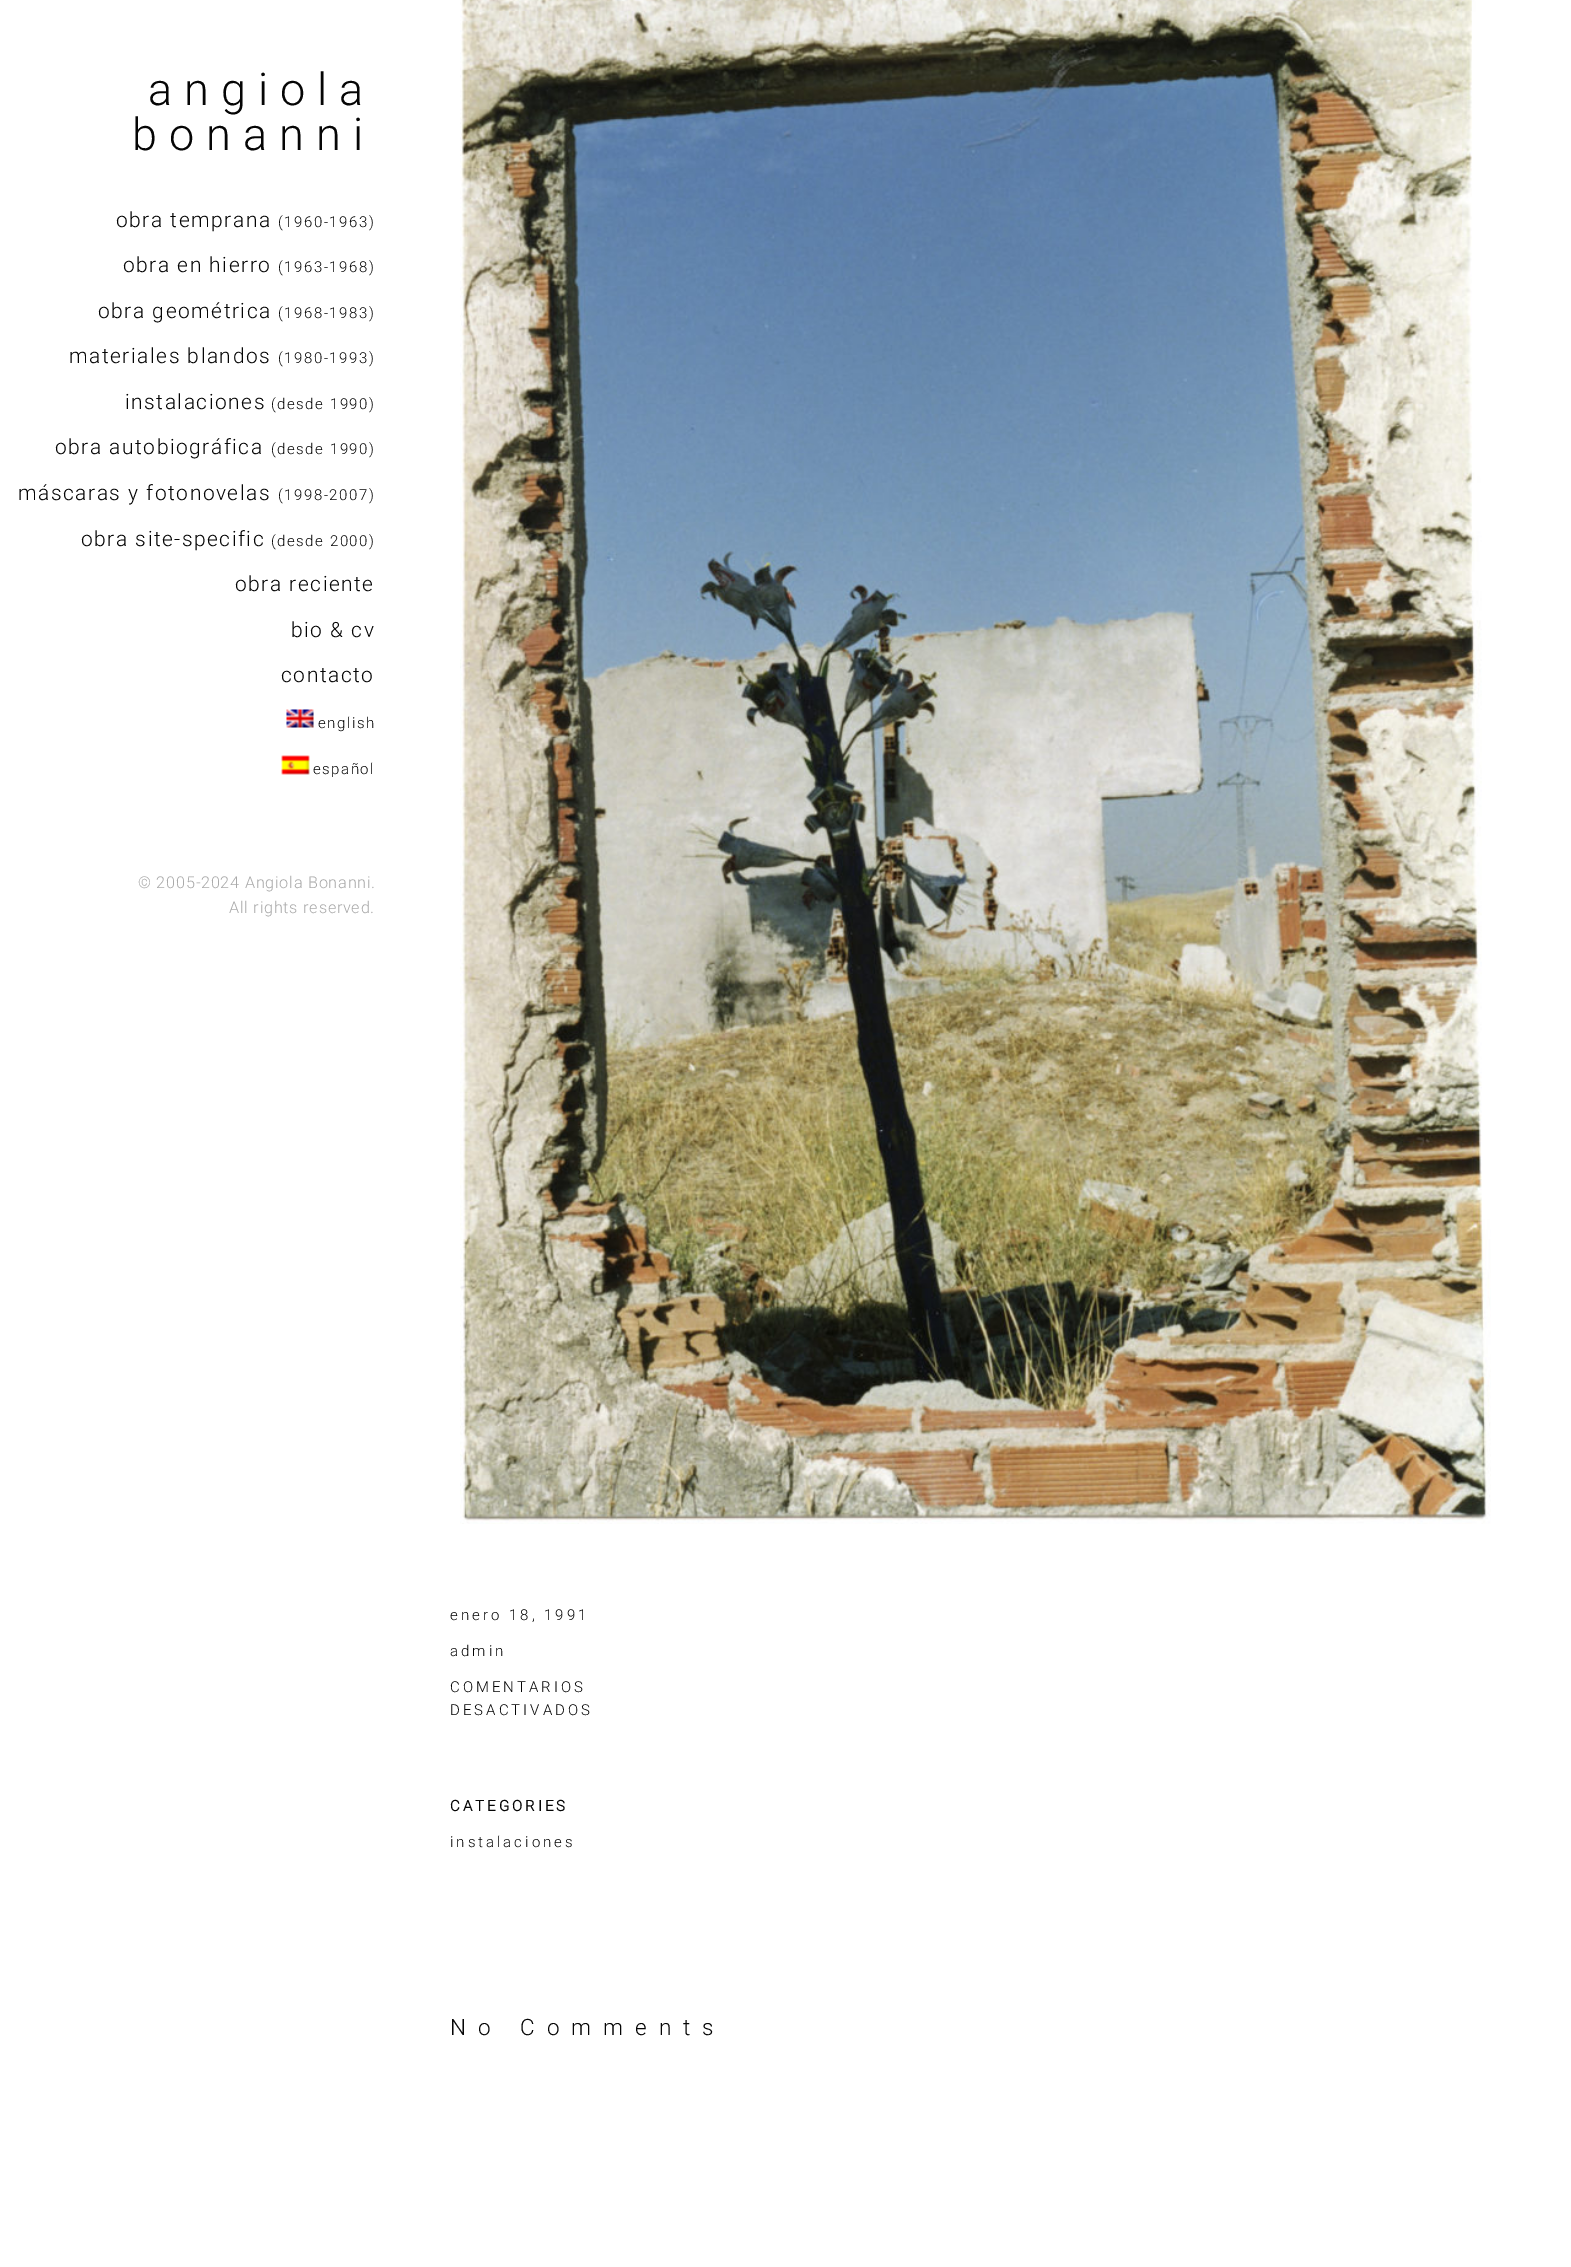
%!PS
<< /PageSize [1571 2267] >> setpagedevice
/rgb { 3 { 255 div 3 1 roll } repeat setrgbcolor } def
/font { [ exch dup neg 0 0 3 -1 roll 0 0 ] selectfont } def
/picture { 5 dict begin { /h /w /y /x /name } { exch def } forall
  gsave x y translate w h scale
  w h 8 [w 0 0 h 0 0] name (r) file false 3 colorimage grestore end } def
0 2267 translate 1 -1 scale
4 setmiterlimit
255 255 255 rgb
0 0 1571 2267 rectfill
(img/1.rgb) 286 709 28 19 picture
(img/2.rgb) 281 755 29 20 picture
(img/3.rgb) 460 0 1031 1524 picture
/Roboto-Light 45 font
5 5 5 rgb
148 105 moveto 12 0 (angiola) ashow
132 150 moveto 12 0 (bonanni) ashow
/Roboto-Light 21 font
116 227 moveto 1.5 0 (obra temprana) ashow
/Roboto-Light 15 font
278 227 moveto 1.5 0 (\(1960-1963\)) ashow
/Roboto-Light 21 font
123 272 moveto 1.5 0 (obra en hierro) ashow
/Roboto-Light 15 font
278 272 moveto 1.5 0 (\(1963-1968\)) ashow
/Roboto-Light 21 font
98 318 moveto 1.5 0 (obra geométrica) ashow
/Roboto-Light 15 font
278 318 moveto 1.5 0 (\(1968-1983\)) ashow
/Roboto-Light 21 font
69 363 moveto 1.5 0 (materiales blandos) ashow
/Roboto-Light 15 font
278 363 moveto 1.5 0 (\(1980-1993\)) ashow
/Roboto-Light 21 font
125 409 moveto 1.5 0 (instalaciones) ashow
/Roboto-Light 15 font
271 409 moveto 1.5 0 (\(desde 1990\)) ashow
/Roboto-Light 21 font
55 454 moveto 1.5 0 (obra autobiográfica) ashow
/Roboto-Light 15 font
271 454 moveto 1.5 0 (\(desde 1990\)) ashow
/Roboto-Light 21 font
18 500 moveto 1.5 0 (máscaras y fotonovelas) ashow
/Roboto-Light 15 font
278 500 moveto 1.5 0 (\(1998-2007\)) ashow
/Roboto-Light 21 font
81 546 moveto 1.5 0 (obra site-specific) ashow
/Roboto-Light 15 font
271 546 moveto 1.5 0 (\(desde 2000\)) ashow
/Roboto-Light 21 font
235 591 moveto 1.5 0 (obra reciente) ashow
291 637 moveto 1.5 0 (bio & cv) ashow
281 682 moveto 1.5 0 (contacto) ashow
/Roboto-Light 15 font
318 728 moveto 1.5 0 (english) ashow
313 774 moveto 1.5 0 (español) ashow
/Roboto-Light 16.25 font
170 170 170 rgb
138 888 moveto 0.75 0 (© 2005-2024 Angiola Bonanni.) ashow
229 913 moveto 0.75 0 (All rights reserved.) ashow
/Roboto-Light 15 font
5 5 5 rgb
450 1620 moveto 3 0 (enero 18, 1991) ashow
450 1656 moveto 3 0 (admin) ashow
450 1692 moveto 3 0 (COMENTARIOS) ashow
450 1715 moveto 3 0 (DESACTIVADOS) ashow
/Roboto-Bold 15 font
450 1811 moveto 3 0 (CATEGORIES) ashow
/Roboto-Light 15 font
450 1847 moveto 3 0 (instalaciones) ashow
/Roboto-Light 22.5 font
450 2035 moveto 12 0 (No Comments) ashow
showpage
